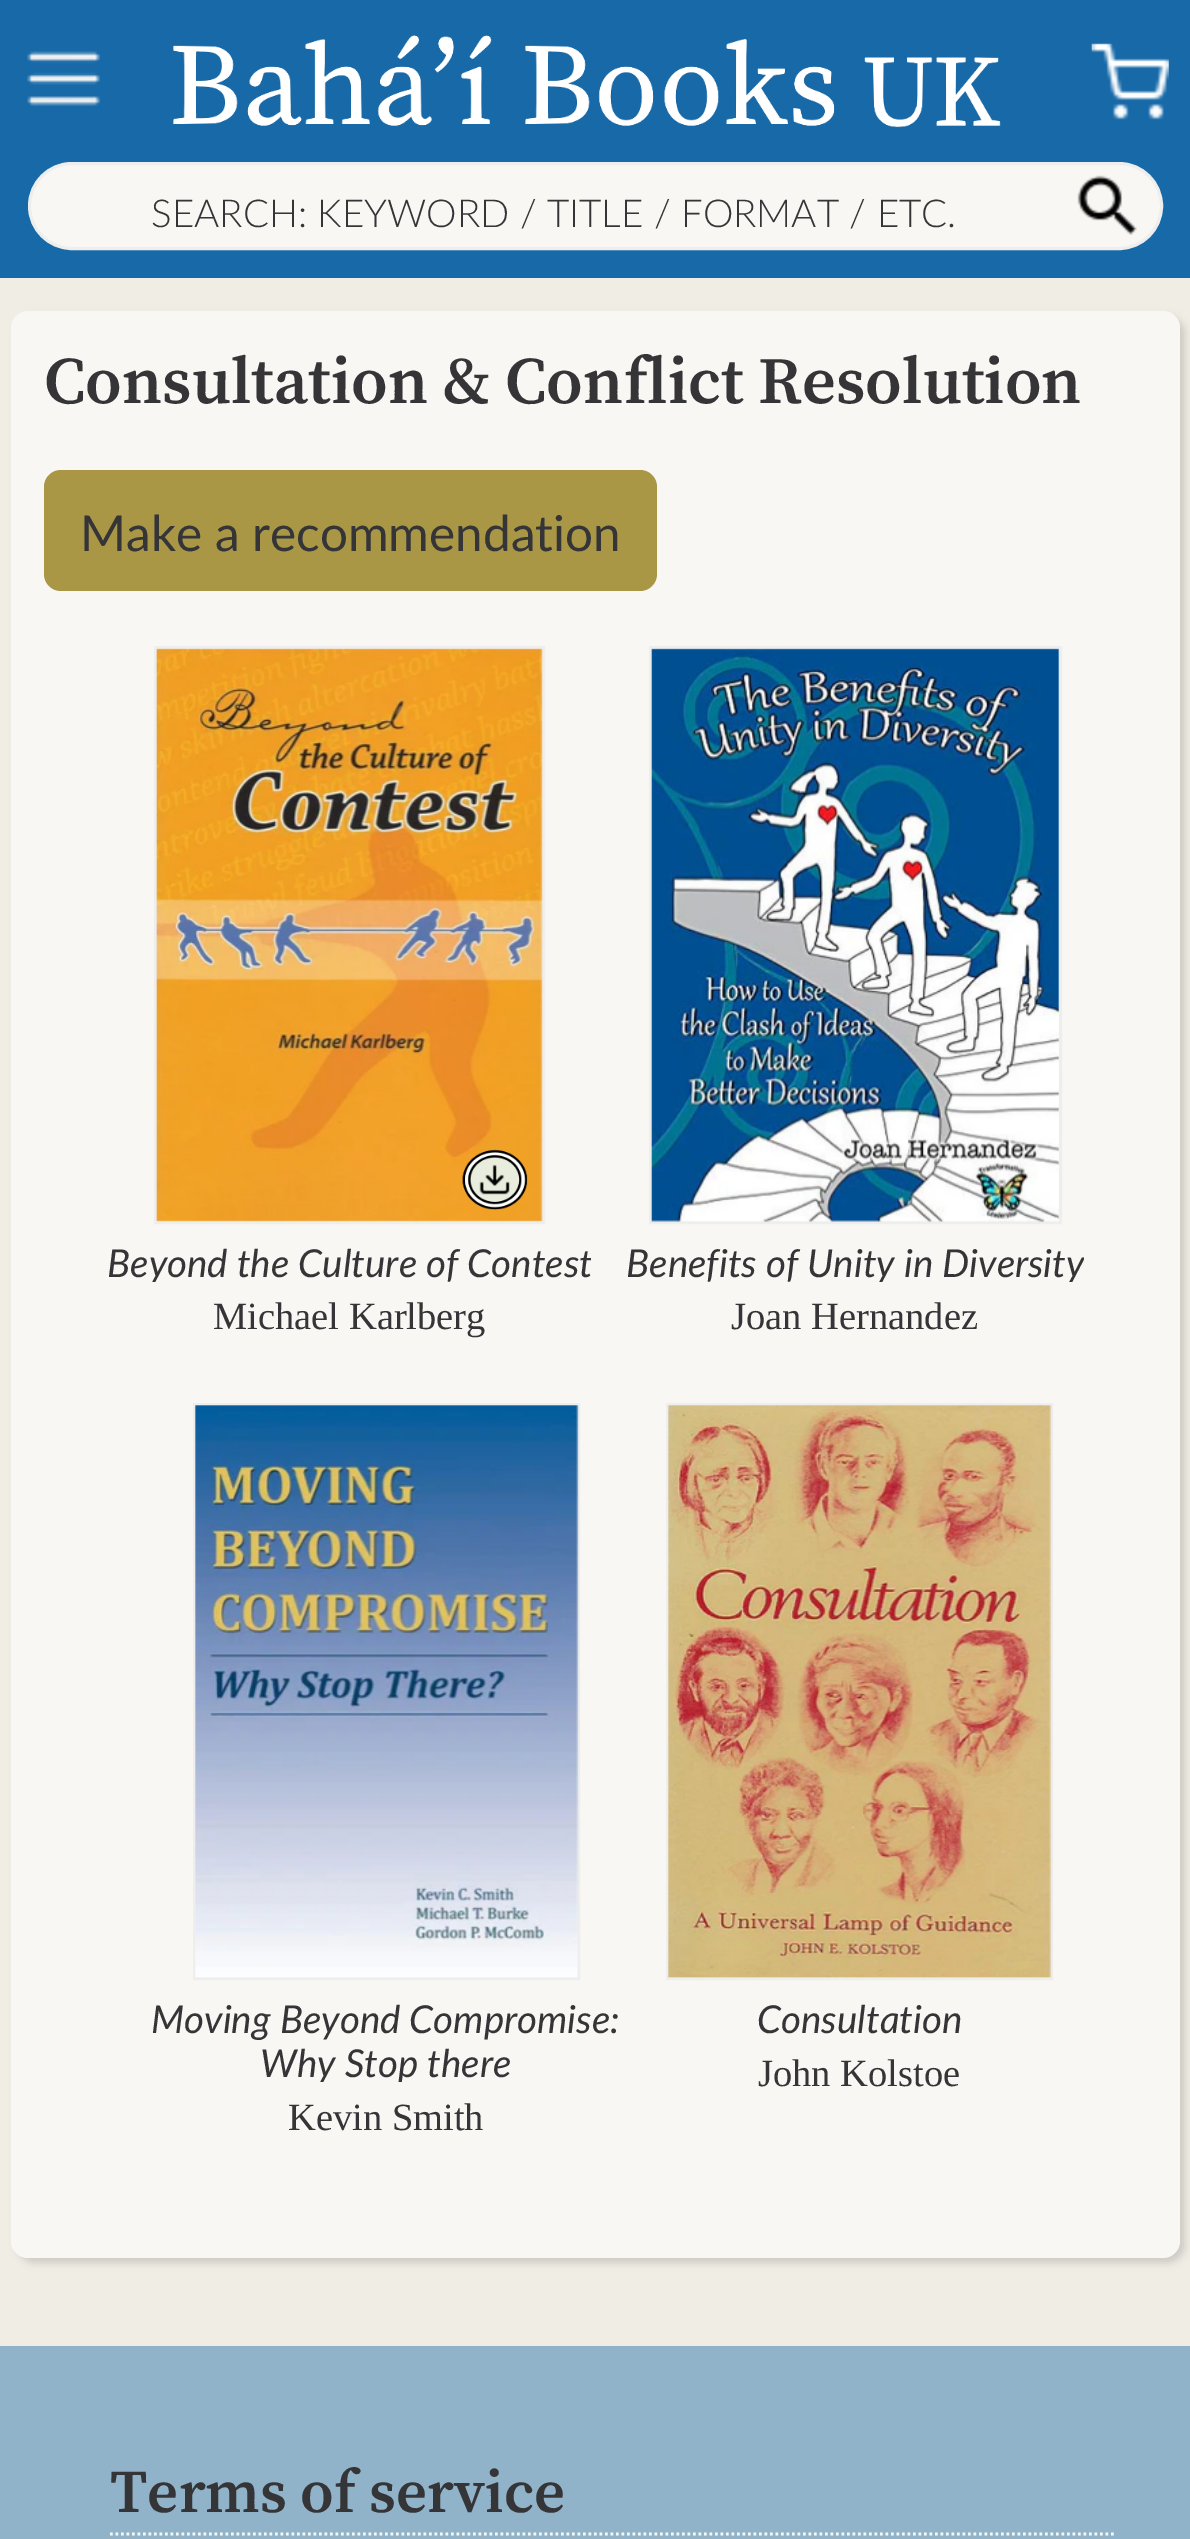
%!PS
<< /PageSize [1190 2539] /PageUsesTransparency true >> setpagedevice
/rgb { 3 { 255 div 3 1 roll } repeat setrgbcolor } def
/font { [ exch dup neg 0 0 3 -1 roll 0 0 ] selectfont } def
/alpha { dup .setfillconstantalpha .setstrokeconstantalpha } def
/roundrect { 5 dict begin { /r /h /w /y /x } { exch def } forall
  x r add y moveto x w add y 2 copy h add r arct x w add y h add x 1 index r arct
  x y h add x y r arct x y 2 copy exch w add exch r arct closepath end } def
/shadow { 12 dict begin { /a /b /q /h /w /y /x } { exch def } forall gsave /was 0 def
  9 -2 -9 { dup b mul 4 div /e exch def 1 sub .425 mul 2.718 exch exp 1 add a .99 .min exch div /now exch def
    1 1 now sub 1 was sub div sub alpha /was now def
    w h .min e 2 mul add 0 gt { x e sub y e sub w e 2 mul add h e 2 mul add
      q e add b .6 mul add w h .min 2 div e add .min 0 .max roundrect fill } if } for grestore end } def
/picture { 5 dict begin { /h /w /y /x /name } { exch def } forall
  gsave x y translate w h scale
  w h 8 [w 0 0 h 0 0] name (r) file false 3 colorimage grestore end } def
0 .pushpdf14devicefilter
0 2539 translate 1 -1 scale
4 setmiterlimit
239 237 228 rgb
0 0 1190 2539 rectfill
23 105 168 rgb
0 0 1190 278 rectfill
(img/1.rgb) 27 51 73 55 picture
(img/2.rgb) 173 35 828 93 picture
(img/3.rgb) 1091 43 78 77 picture
248 247 244 rgb
29.5 163.5 1132 85 42.5 roundrect gsave fill grestore
238 238 238 rgb
3 setlinewidth
stroke
(img/4.rgb) 1077 175 60 60 picture
53 53 56 rgb
17 316 1168 1947 17 4 0.19 shadow
248 247 244 rgb
11 311 1169 1947 17 roundrect fill
169 151 70 rgb
44 470 613 121 17 roundrect fill
238 238 238 rgb
155.5 647.5 388 575 rectstroke
(img/5.rgb) 156 648 387 574 picture
(img/6.rgb) 462 1149 66 61 picture
650.5 647.5 410 575 rectstroke
(img/7.rgb) 651 648 409 574 picture
194.5 1404.5 384 574 rectstroke
(img/8.rgb) 195 1405 384 573 picture
667.5 1404.5 384 574 rectstroke
(img/9.rgb) 668 1405 384 573 picture
144 179 202 rgb
0 2346 1190 193 rectfill
248 247 244 rgb
2.8 setlinewidth
[2.75 2.75] 0 setdash
110 2534 moveto 1114 2534 lineto stroke
/Lato-Light 38.5 font
53 53 56 rgb
151 227 moveto (SEARCH: KEYWORD / TITLE / FORMAT / ETC.) show
/SourceSerif4-SemiBold 66 font
44 403 moveto (Consultation & Conflict Resolution) show
/Lato-Regular 49.5 font
80 551 moveto (Make a recommendation) show
gsave
107 1238 484 44 rectclip
/Lato-Italic 38.5 font
107 1277 moveto (Beyond the Culture of Contest) show
grestore
/LiberationSerif-Regular 38.5 font
213 1329 moveto (Michael Karlberg) show
gsave
624 1238 460 44 rectclip
/Lato-Italic 38.5 font
626 1277 moveto (Benefits of Unity in Diversity) show
grestore
731 1329 moveto (Joan Hernandez) show
/Lato-Italic 38.5 font
151 2033 moveto (Moving Beyond Compromise:) show
gsave
138 1994 495 88 rectclip
260 2077 moveto (Why Stop there) show
grestore
/LiberationSerif-Regular 38.5 font
288 2130 moveto (Kevin Smith) show
/Lato-Italic 38.5 font
757 2033 moveto (Consultation) show
/LiberationSerif-Regular 38.5 font
758 2086 moveto (John Kolstoe) show
/SourceSerif4-SemiBold 60.5 font
110 2512 moveto (Terms of service) show
.poppdf14devicefilter showpage
